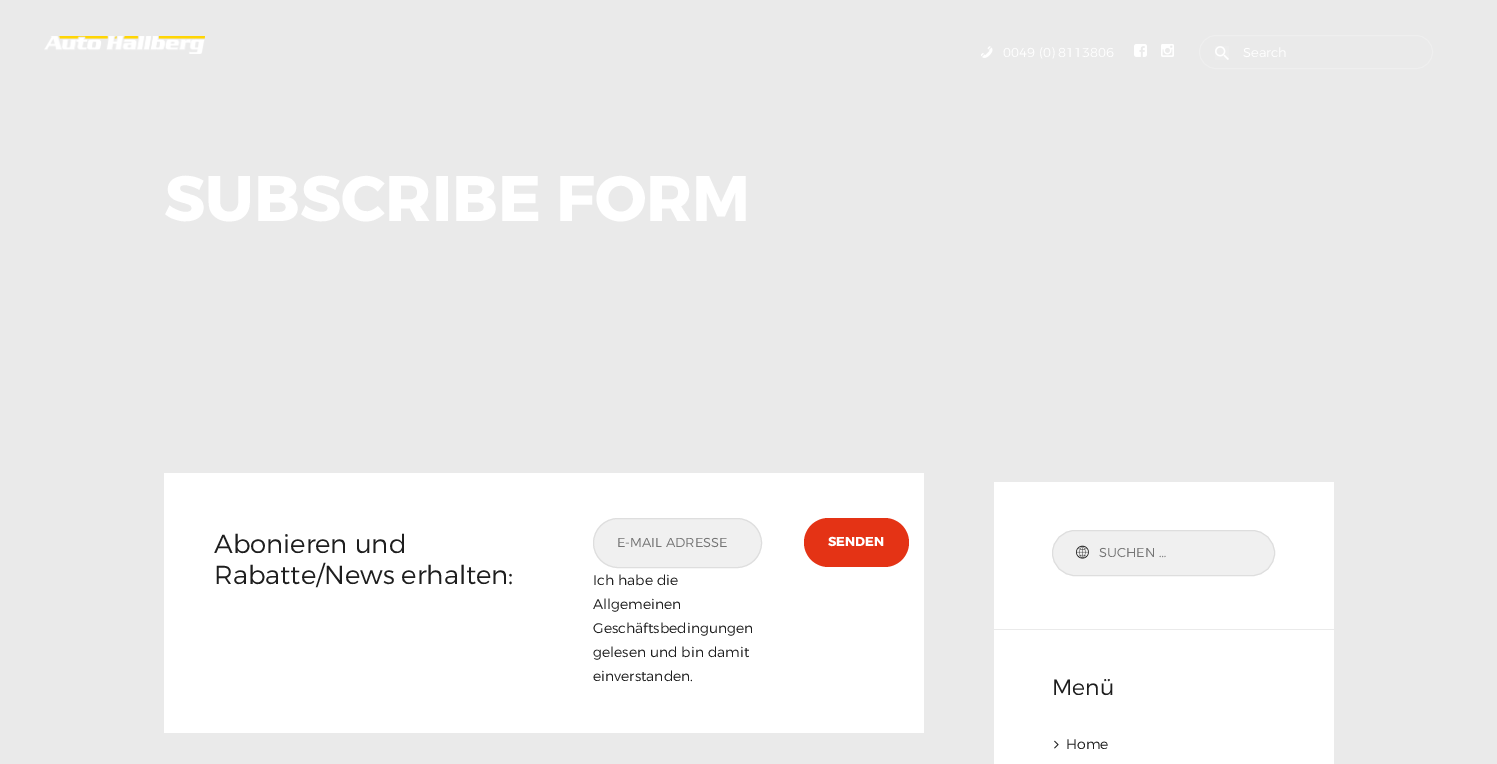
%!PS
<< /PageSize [1497 764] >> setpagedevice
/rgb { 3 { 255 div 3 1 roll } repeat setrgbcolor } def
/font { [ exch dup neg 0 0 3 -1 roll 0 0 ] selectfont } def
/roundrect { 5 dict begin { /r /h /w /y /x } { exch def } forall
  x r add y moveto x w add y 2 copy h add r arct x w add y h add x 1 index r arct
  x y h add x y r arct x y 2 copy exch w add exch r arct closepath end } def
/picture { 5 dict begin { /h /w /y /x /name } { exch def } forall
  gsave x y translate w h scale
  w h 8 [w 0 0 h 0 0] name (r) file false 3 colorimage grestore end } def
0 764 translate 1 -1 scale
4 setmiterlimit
234 234 234 rgb
0 0 1497 764 rectfill
(img/1.rgb) 44 36 161 18 picture
(img/2.rgb) 981 46 12 12 picture
(img/3.rgb) 1134 44 13 13 picture
(img/4.rgb) 1161 44 13 13 picture
239 239 239 rgb
1199.5 35.5 233 33 16.5 roundrect stroke
(img/5.rgb) 1215 46 14 14 picture
255 255 255 rgb
164 473 760 260 rectfill
240 240 240 rgb
593.5 518.5 168 49 24.5 roundrect gsave fill grestore
222 222 222 rgb
stroke
228 51 21 rgb
804 518 105 49 24.5 roundrect fill
255 255 255 rgb
994 482 340 282 rectfill
240 240 240 rgb
1052.5 530.5 222 45 22.5 roundrect gsave fill grestore
222 222 222 rgb
stroke
(img/6.rgb) 1076 545 13 14 picture
234 234 234 rgb
994 629 340 1 rectfill
(img/7.rgb) 1054 740 5 9 picture
/Montserrat-Light 13 font
255 255 255 rgb
1003 57 moveto (0049 \(0\) 8113806) show
1243 57 moveto (Search) show
/Montserrat-Bold 64 font
164 221 moveto (SUBSCRIBE FORM) show
/Montserrat-Light 26 font
30 30 30 rgb
214 553 moveto (Abonieren und) show
214 584 moveto (Rabatte/News erhalten:) show
/Montserrat-Light 13 font
117 117 117 rgb
617 547 moveto (E-MAIL ADRESSE) show
/Montserrat-Bold 13 font
255 255 255 rgb
828 546 moveto (SENDEN) show
/Montserrat-Light 14 font
30 30 30 rgb
[
  [(Ich habe die) 593 585]
  [(Allgemeinen) 593 609]
  [(Geschäftsbedingungen) 593 633]
  [(gelesen und bin damit) 593 657]
  [(einverstanden.) 593 681]
] { aload pop moveto show } forall
/Montserrat-Light 13 font
117 117 117 rgb
1099 557 moveto (SUCHEN …) show
/Montserrat-Light 22 font
30 30 30 rgb
1052 695 moveto (Menü) show
/Montserrat-Light 14 font
1066 749 moveto (Home) show
showpage
